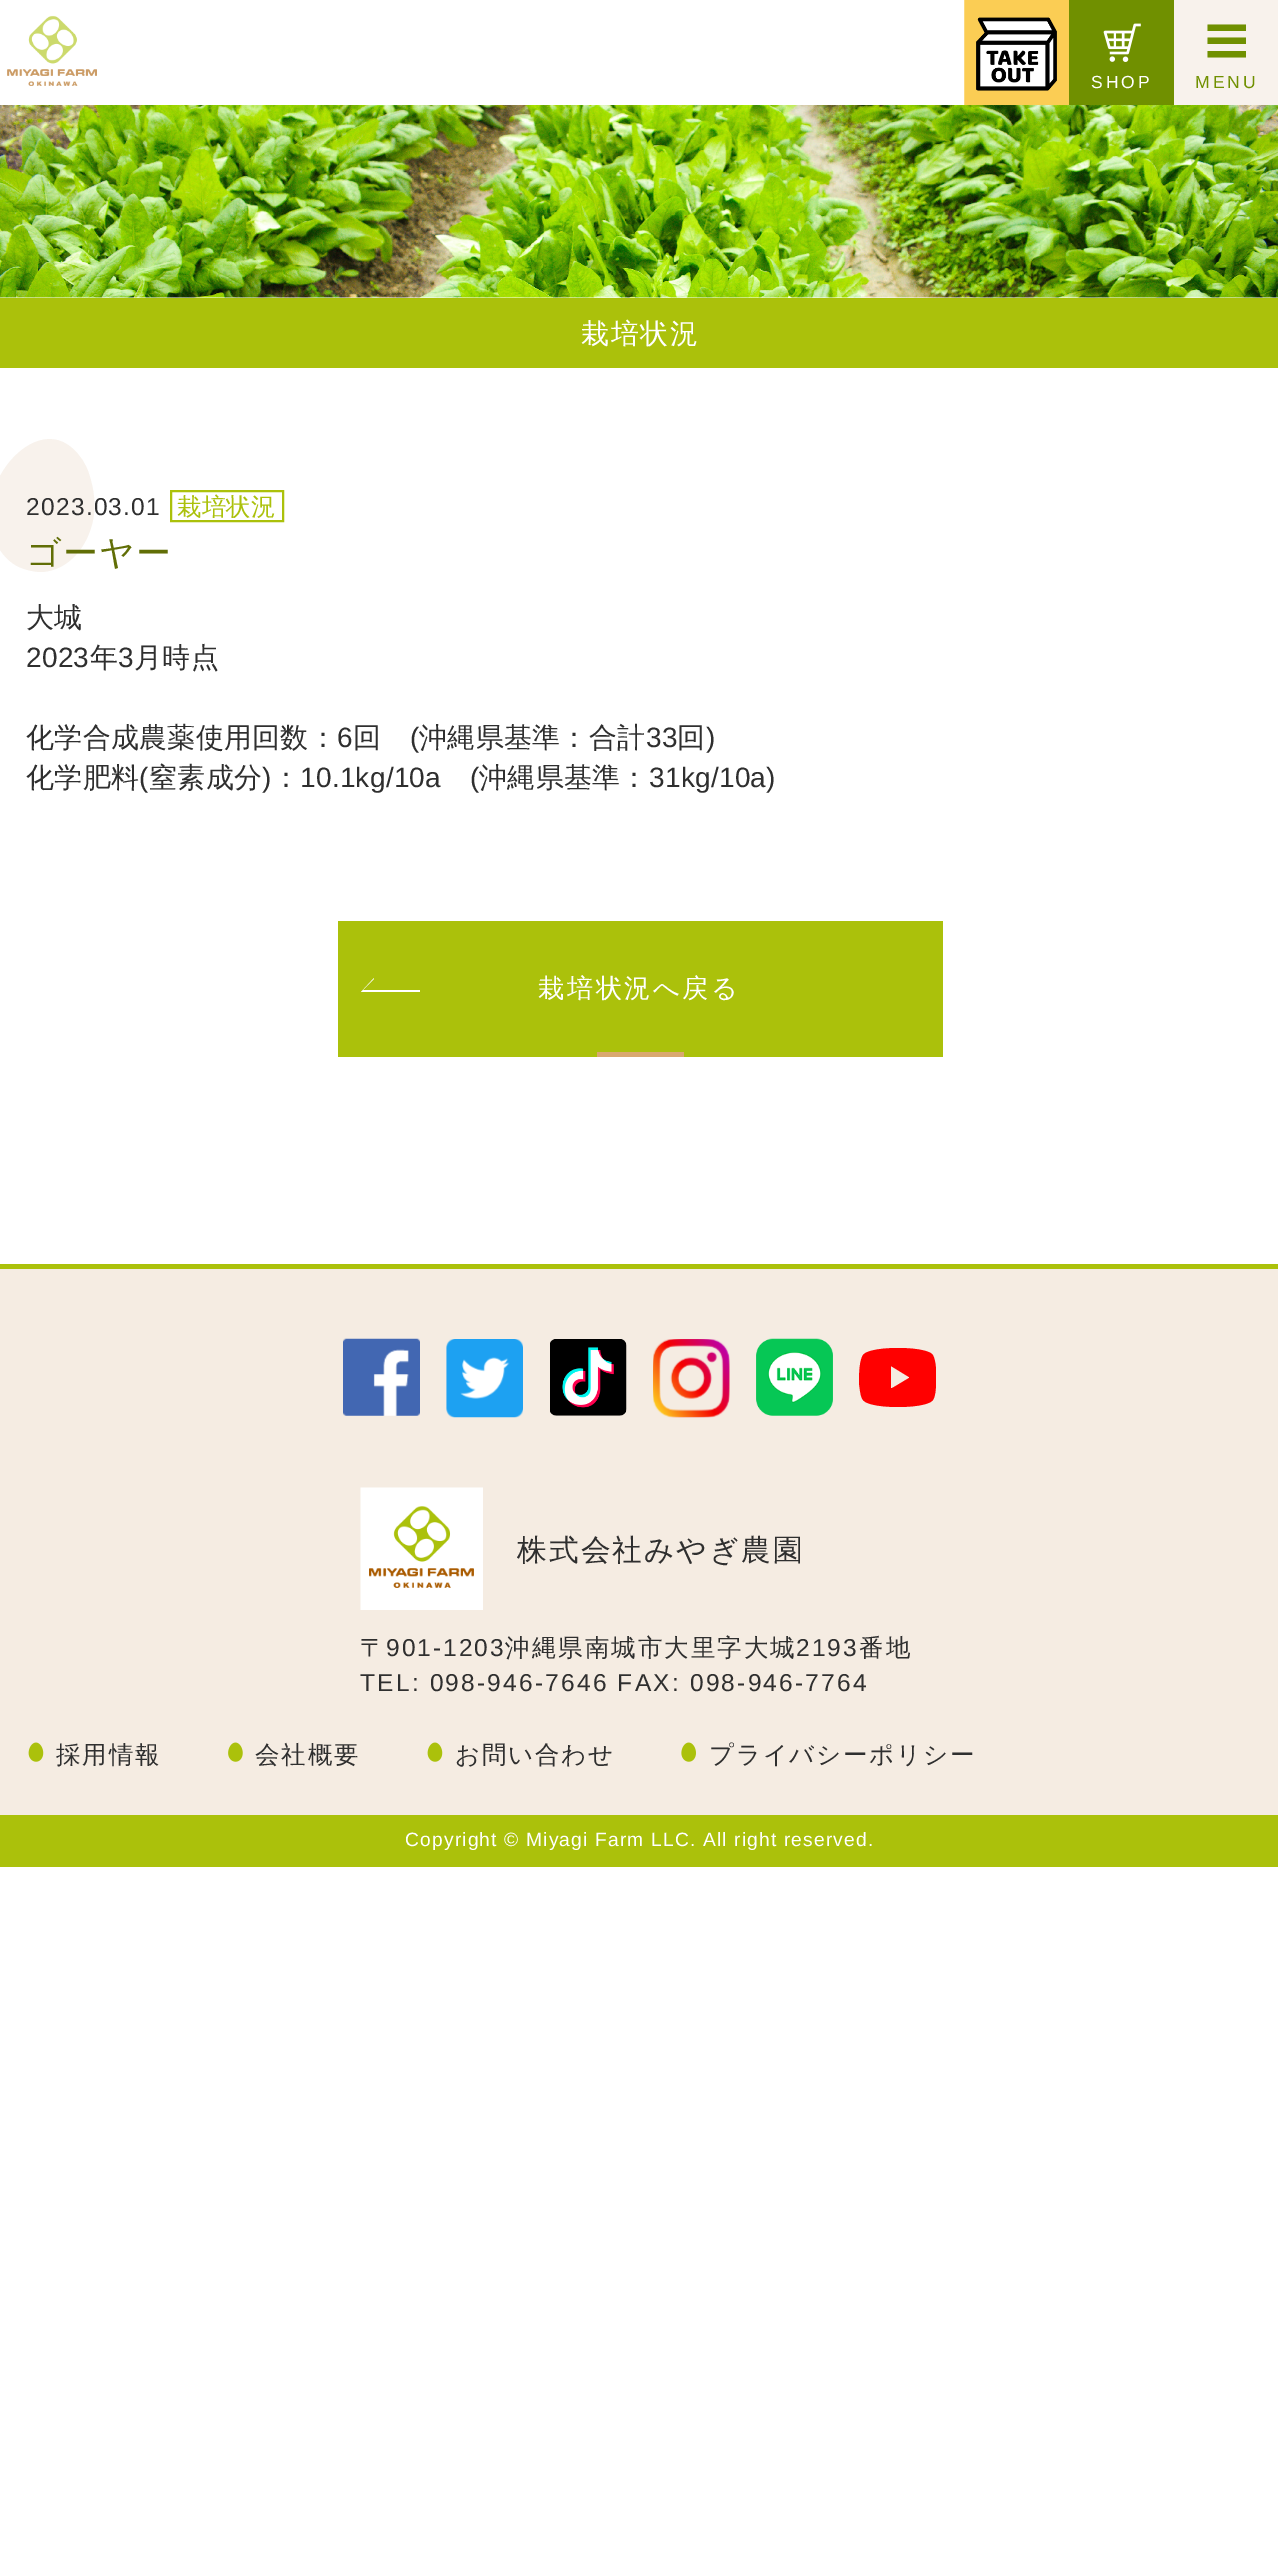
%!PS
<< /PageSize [1278 2573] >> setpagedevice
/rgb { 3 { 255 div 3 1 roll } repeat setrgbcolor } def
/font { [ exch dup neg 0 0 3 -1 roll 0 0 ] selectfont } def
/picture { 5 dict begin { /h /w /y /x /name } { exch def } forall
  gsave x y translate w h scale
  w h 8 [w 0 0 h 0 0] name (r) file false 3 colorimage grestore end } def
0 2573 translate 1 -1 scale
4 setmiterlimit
255 255 255 rgb
0 0 1278 2573 rectfill
(img/1.rgb) 7 15 90 71 picture
(img/2.rgb) 964 0 105 105 picture
112 144 0 rgb
1069 0 105 105 rectfill
(img/3.rgb) 1103 23 38 39 picture
248 242 236 rgb
1174 0 104 105 rectfill
112 144 0 rgb
1207.5 24.5 moveto 1246 24.5 lineto 1246 31 lineto 1207.5 31 lineto closepath 1207.5 37.5 moveto 1246 37.5 lineto 1246 44 lineto 1207.5 44 lineto closepath 1207.5 51 moveto 1246 51 lineto 1246 57.5 lineto 1207.5 57.5 lineto closepath fill
(img/4.rgb) 0 105 1278 193 picture
171 193 11 rgb
0 298 1278 70 rectfill
2 setlinewidth
171 491 112 30 rectstroke
248 242 236 rgb
-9 502 moveto -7 490 -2 478 5 468 curveto 19 447 48 427 72 448 curveto 80 455 86 464 89 474 curveto 94 489 96 505 93 520 curveto 88 545 70 570 42 572 curveto 34 572 25 570 17 566 curveto 6 560 -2 549 -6 538 curveto -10 526 -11 514 -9 502 curveto closepath fill
171 193 11 rgb
338 921 605 136 rectfill
255 255 255 rgb
374 978 moveto 374 979 lineto 363 990 lineto 420 990 lineto 420 992 lineto 361 992 lineto closepath fill
[
  [597 1052 87 5 217 168 111]
  [0 1269 1278 546 245 236 226]
  [0 1264 1278 5 171 193 11]
] { aload pop rgb rectfill } forall
(img/5.rgb) 343 1338 77 78 picture
(img/6.rgb) 446 1339 77 79 picture
(img/7.rgb) 550 1339 77 77 picture
(img/8.rgb) 653 1339 77 79 picture
(img/9.rgb) 756 1338 77 78 picture
gsave
859 1339 77 77 rectclip
255 0 0 rgb
932 1354 moveto 923 1346 873 1346 864 1354 curveto 859 1358 859 1377 859 1384 curveto 860 1388 860 1398 864 1401 curveto 873 1409 923 1409 932 1401 curveto 937 1397 936 1377 936 1371 curveto 936 1367 935 1357 932 1354 curveto closepath 909 1378 moveto 894 1387 lineto 890 1389 891 1389 891 1384 curveto 891 1366 lineto 909 1377 lineto closepath fill
grestore
(img/10.rgb) 360 1487 123 123 picture
(img/11.rgb) 28 1742 16 20 picture
(img/12.rgb) 228 1742 15 20 picture
(img/11.rgb) 427 1742 16 20 picture
(img/13.rgb) 681 1742 15 20 picture
0 1815 1278 52 rectfill
/LiberationSans-Regular 17.5 font
255 255 255 rgb
1091 88 moveto 3 0 (SHOP) ashow
112 144 0 rgb
1195 88 moveto 3 0 (MENU) ashow
/WenQuanYiZenHei-Medium 28 font
255 255 255 rgb
581 343 moveto 1.5 0 (栽培状況) ashow
/LiberationSans-Regular 24.5 font
47 47 47 rgb
26 515 moveto 1.25 0 (2023.03.01) ashow
/WenQuanYiZenHei-Medium 24.5 font
171 193 11 rgb
177 515 moveto (栽培状況) show
/WenQuanYiZenHei-Medium 35 font
97 110 6 rgb
26 565 moveto 1 0 (ゴーヤー) ashow
/WenQuanYiZenHei-Medium 28 font
47 47 47 rgb
26 627 moveto 0.25 0 (大城) ashow
/LiberationSans-Regular 28 font
26 667 moveto 0.25 0 (2023) ashow
/WenQuanYiZenHei-Medium 28 font
90 667 moveto 0.25 0 (年) ashow
/LiberationSans-Regular 28 font
118 667 moveto 0.25 0 (3) ashow
/WenQuanYiZenHei-Medium 28 font
134 667 moveto 0.25 0 (月時点) ashow
26 747 moveto 0.25 0 (化学合成農薬使用回数：) ashow
/LiberationSans-Regular 28 font
337 747 moveto 0.25 0 (6) ashow
/WenQuanYiZenHei-Medium 28 font
353 747 moveto 0.25 0 (回) ashow
/LiberationSans-Regular 28 font
410 747 moveto 0.25 0 (\() ashow
/WenQuanYiZenHei-Medium 28 font
419 747 moveto 0.25 0 (沖縄県基準：合計) ashow
/LiberationSans-Regular 28 font
646 747 moveto 0.25 0 (33) ashow
/WenQuanYiZenHei-Medium 28 font
677 747 moveto 0.25 0 (回) ashow
/LiberationSans-Regular 28 font
706 747 moveto 0.25 0 (\)) ashow
/WenQuanYiZenHei-Medium 28 font
26 787 moveto 0.25 0 (化学肥料) ashow
/LiberationSans-Regular 28 font
139 787 moveto 0.25 0 (\() ashow
/WenQuanYiZenHei-Medium 28 font
149 787 moveto 0.25 0 (窒素成分) ashow
/LiberationSans-Regular 28 font
262 787 moveto 0.25 0 (\)) ashow
/WenQuanYiZenHei-Medium 28 font
272 787 moveto 0.25 0 (：) ashow
/LiberationSans-Regular 28 font
300 787 moveto 0.25 0 (10.1kg/10a) ashow
470 787 moveto 0.25 0 (\() ashow
/WenQuanYiZenHei-Medium 28 font
479 787 moveto 0.25 0 (沖縄県基準：) ashow
/LiberationSans-Regular 28 font
649 787 moveto 0.25 0 (31kg/10a\)) ashow
/WenQuanYiZenHei-Medium 26.25 font
255 255 255 rgb
538 997 moveto 2.5 0 (栽培状況へ戻る) ashow
/WenQuanYiZenHei-Medium 29.75 font
47 47 47 rgb
517 1560 moveto 2 0 (株式会社みやぎ農園) ashow
/WenQuanYiZenHei-Medium 24.5 font
360 1656 moveto 2 0 (〒) ashow
/LiberationSans-Regular 24.5 font
386 1656 moveto 2 0 (901-1203) ashow
/WenQuanYiZenHei-Medium 24.5 font
505 1656 moveto 2 0 (沖縄県南城市大里字大城) ashow
/LiberationSans-Regular 24.5 font
796 1656 moveto 2 0 (2193) ashow
/WenQuanYiZenHei-Medium 24.5 font
859 1656 moveto 2 0 (番地) ashow
/LiberationSans-Regular 24.5 font
360 1691 moveto 2.2 0 (TEL: 098-946-7646 FAX: 098-946-7764) ashow
/WenQuanYiZenHei-Medium 24.5 font
56 1763 moveto 1.75 0 (採用情報) ashow
255 1763 moveto 1.75 0 (会社概要) ashow
455 1763 moveto 1.75 0 (お問い合わせ) ashow
709 1763 moveto 1.75 0 (プライバシーポリシー) ashow
/LiberationSans-Regular 19.25 font
255 255 255 rgb
405 1846 moveto 1.15 0 (Copyright © Miyagi Farm LLC. All right reserved.) ashow
showpage
